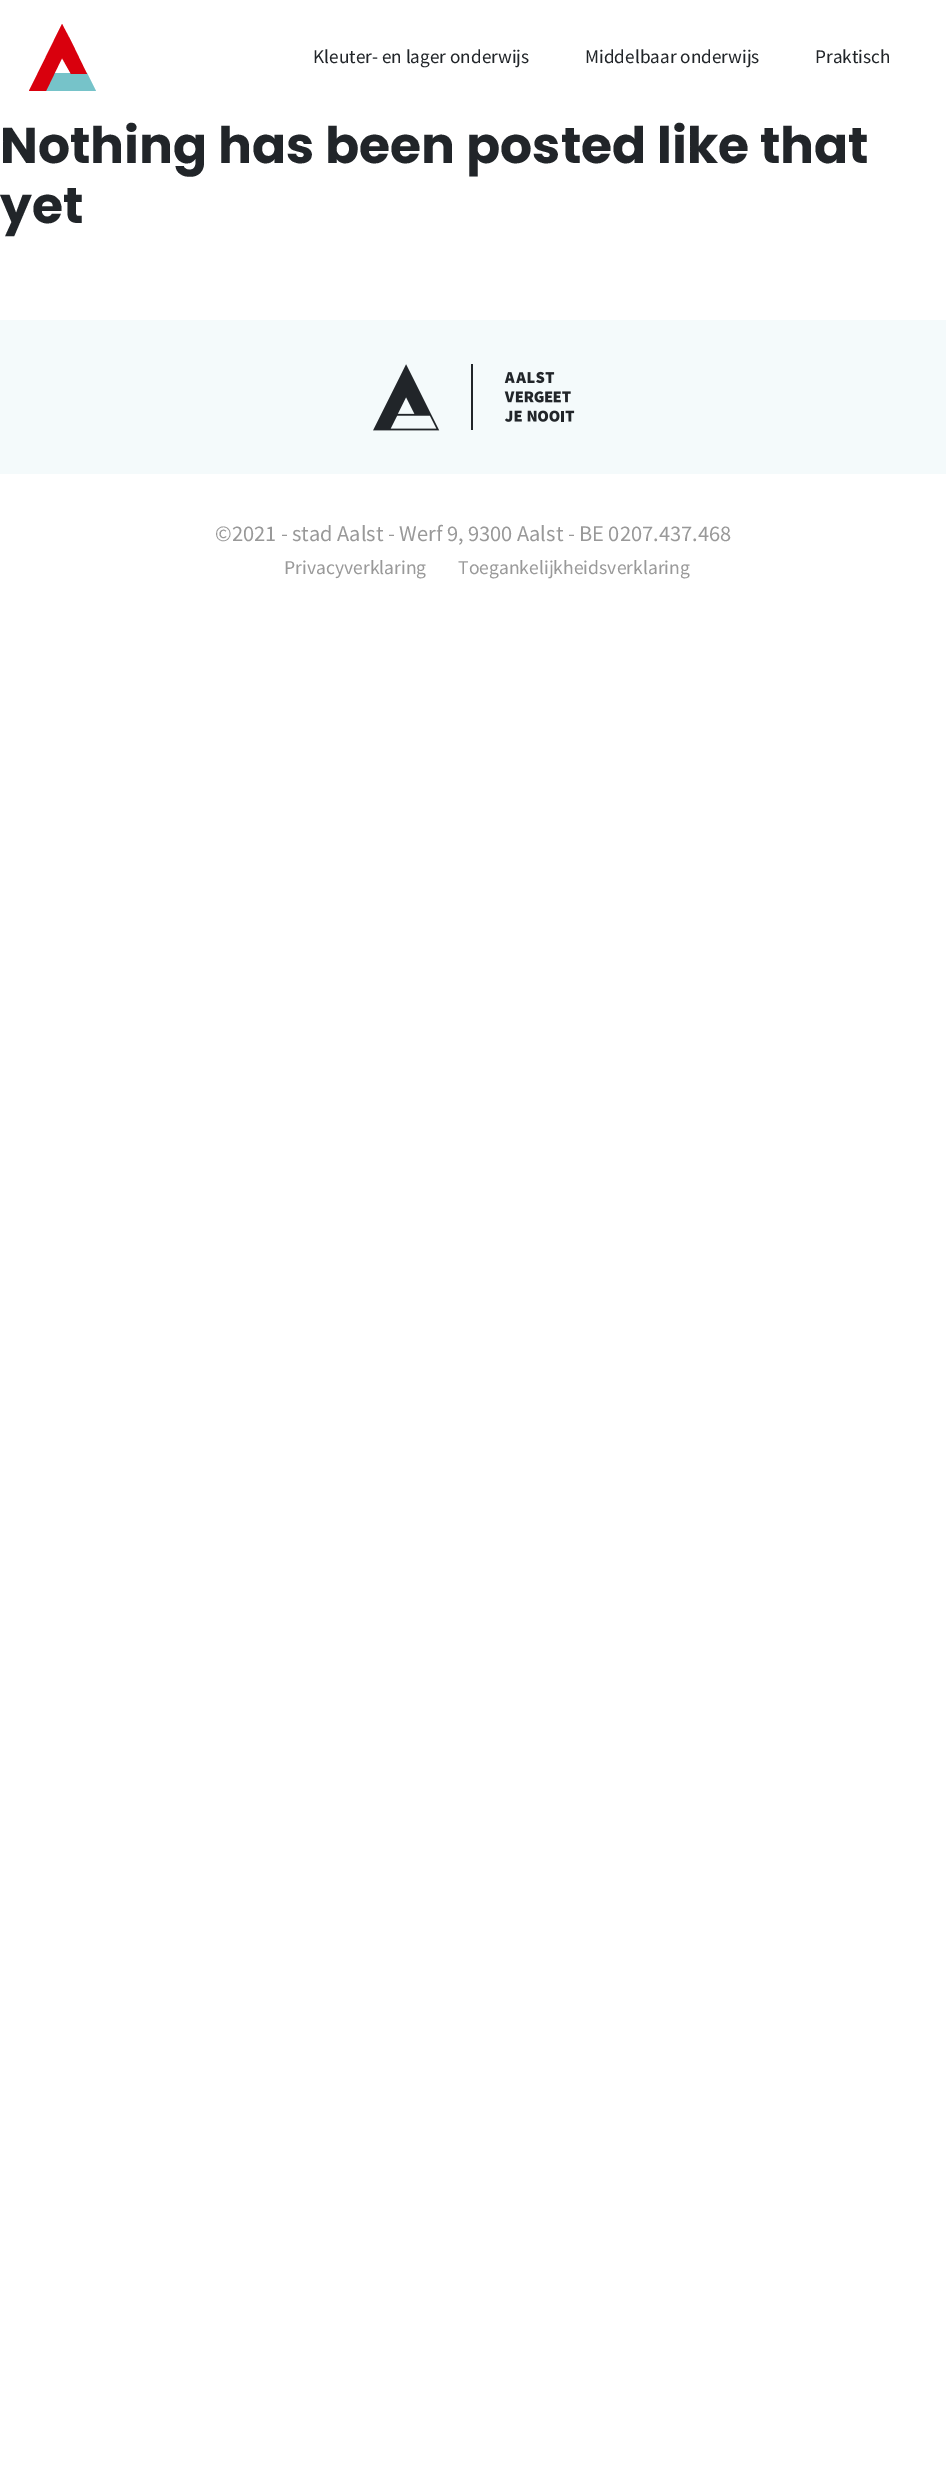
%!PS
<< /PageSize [946 2471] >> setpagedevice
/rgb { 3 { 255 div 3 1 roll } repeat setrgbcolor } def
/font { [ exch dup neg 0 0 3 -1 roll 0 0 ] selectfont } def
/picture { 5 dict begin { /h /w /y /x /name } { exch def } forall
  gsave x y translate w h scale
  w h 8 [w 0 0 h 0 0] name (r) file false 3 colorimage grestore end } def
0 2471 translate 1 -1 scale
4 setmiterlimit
255 255 255 rgb
0 0 946 2471 rectfill
118 195 201 rgb
87 73 moveto 51 73 lineto 42 91 lineto 96 91 lineto closepath fill
217 0 13 rgb
71 41 moveto 62 24 lineto 29 91 lineto 46 91 lineto 62 58 lineto 71 74 lineto 87 74 lineto closepath fill
244 250 251 rgb
0 320 946 154 rectfill
(img/1.rgb) 373 364 202 67 picture
/SourceSansPro-Regular 19.25 font
33 37 41 rgb
[
  [(Kleuter- en lager onderwijs) 313 63]
  [(Middelbaar onderwijs) 585 63]
  [(Praktisch) 815 63]
] { aload pop moveto show } forall
/Poppins-Bold 50.4 font
0 163 moveto (Nothing has been posted like that) show
0 223 moveto (yet) show
/SourceSansPro-Regular 22.4 font
153 153 153 rgb
215 541 moveto (©2021 - stad Aalst - Werf 9, 9300 Aalst - BE 0207.437.468) show
/SourceSansPro-Regular 19.6 font
284 574 moveto (Privacyverklaring) show
458 574 moveto (Toegankelijkheidsverklaring) show
showpage
